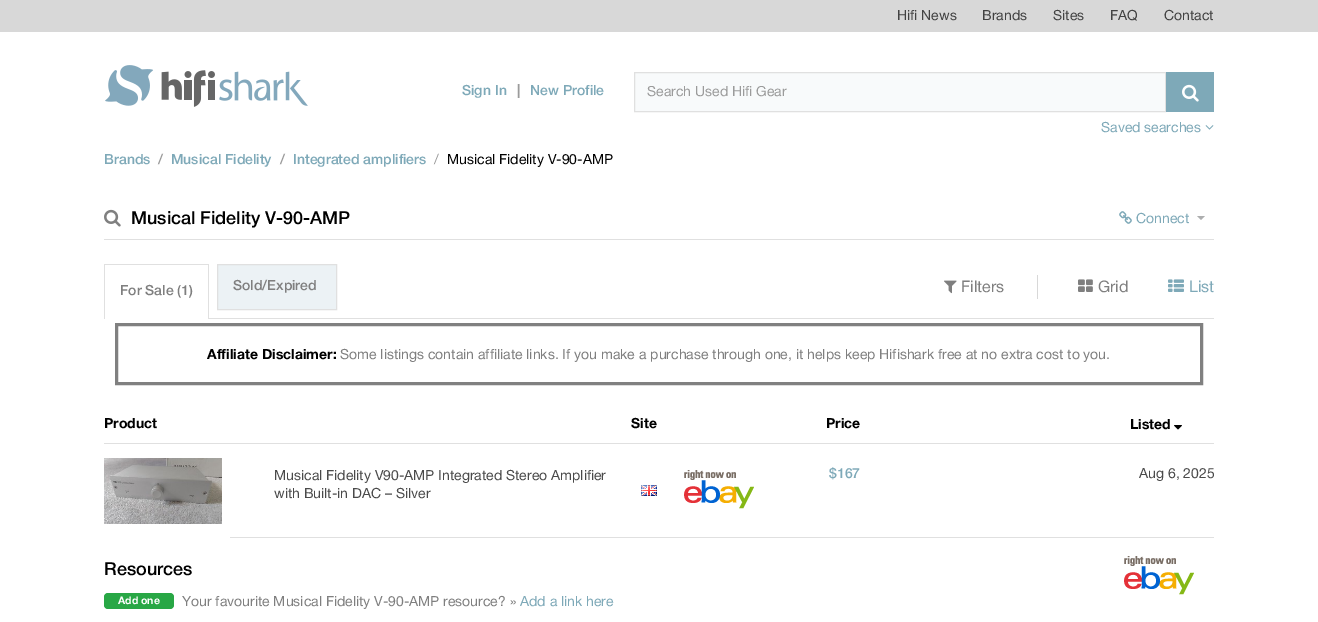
%!PS
<< /PageSize [1318 622] >> setpagedevice
/rgb { 3 { 255 div 3 1 roll } repeat setrgbcolor } def
/font { [ exch dup neg 0 0 3 -1 roll 0 0 ] selectfont } def
/roundrect { 5 dict begin { /r /h /w /y /x } { exch def } forall
  x r add y moveto x w add y 2 copy h add r arct x w add y h add x 1 index r arct
  x y h add x y r arct x y 2 copy exch w add exch r arct closepath end } def
/picture { 5 dict begin { /h /w /y /x /name } { exch def } forall
  gsave x y translate w h scale
  w h 8 [w 0 0 h 0 0] name (r) file false 3 colorimage grestore end } def
0 622 translate 1 -1 scale
4 setmiterlimit
255 255 255 rgb
0 0 1318 622 rectfill
216 216 216 rgb
0 0 1318 32 rectfill
(img/1.rgb) 105 65 203 42 picture
248 250 251 rgb
634.5 72.5 moveto 1165.5 72.5 lineto 1165.5 111.5 lineto 634.5 111.5 lineto closepath gsave fill grestore
224 224 224 rgb
stroke
126 169 184 rgb
1166 72 48 40 rectfill
(img/2.rgb) 1182 84 17 18 picture
(img/3.rgb) 1205 125 9 5 picture
224 224 224 rgb
104 239 1110 1 rectfill
(img/4.rgb) 104 209 17 18 picture
(img/5.rgb) 1119 211 13 13 picture
173 174 175 rgb
1197 216 moveto 1205 216 lineto 1201 220 lineto closepath fill
[
  [104 318 1110 1 224 224 224]
  [104 264 105 1 224 224 224]
  [208 264 1 54 224 224 224]
  [104 264 1 54 224 224 224]
  [105 318 103 1 255 255 255]
] { aload pop rgb rectfill } forall
236 242 245 rgb
217.5 264.5 moveto 336.5 264.5 lineto 336.5 309.5 lineto 217.5 309.5 lineto closepath gsave fill grestore
224 224 224 rgb
stroke
216 216 216 rgb
1037 275 1 24 rectfill
(img/6.rgb) 944 280 13 14 picture
(img/7.rgb) 1078 279 15 13 picture
(img/8.rgb) 1168 279 16 13 picture
128 128 128 rgb
3 setlinewidth
116.5 324.5 1085 59 rectstroke
224 224 224 rgb
104 443 1110 1 rectfill
(img/9.rgb) 1174 425 8 5 picture
(img/10.rgb) 104 458 118 66 picture
(img/11.rgb) 641 485 16 11 picture
(img/12.rgb) 684 470 70 39 picture
230 537 984 1 rectfill
(img/12.rgb) 1124 556 70 39 picture
40 167 69 rgb
104 593 70 16 4 roundrect fill
/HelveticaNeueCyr-Regular 14 font
66 66 66 rgb
[
  [(Hifi News) 897 20]
  [(Brands) 982 20]
  [(Sites) 1053 20]
  [(FAQ) 1110 20]
  [(Contact) 1164 20]
] { aload pop moveto show } forall
/HelveticaNeueCyr-Medium 14 font
126 169 184 rgb
462 95 moveto (Sign In) show
/HelveticaNeueCyr-Bold 14 font
155 155 155 rgb
517 95 moveto (|) show
/HelveticaNeueCyr-Medium 14 font
126 169 184 rgb
530 95 moveto (New Profile) show
gsave
647 86 506 14 rectclip
/HelveticaNeueCyr-Regular 14 font
155 155 155 rgb
647 96 moveto (Search Used Hifi Gear) show
grestore
/HelveticaNeueCyr-Regular 14 font
1101 132 moveto (Saved searches) show
/HelveticaNeueCyr-Medium 14 font
104 164 moveto (Brands) show
155 155 155 rgb
158 164 moveto (/) show
126 169 184 rgb
171 164 moveto (Musical Fidelity) show
155 155 155 rgb
280 164 moveto (/) show
126 169 184 rgb
293 164 moveto (Integrated amplifiers) show
/HelveticaNeueCyr-Regular 14 font
155 155 155 rgb
434 164 moveto (/) show
0 0 0 rgb
447 164 moveto (Musical Fidelity V-90-AMP) show
/HelveticaNeueCyr-Medium 18 font
131 224 moveto (Musical Fidelity V-90-AMP) show
/HelveticaNeueCyr-Regular 14 font
126 169 184 rgb
1136 223 moveto (Connect) show
/HelveticaNeueCyr-Medium 14 font
127 127 127 rgb
120 295 moveto (For Sale \(1\)) show
233 290 moveto (Sold/Expired) show
/HelveticaNeueCyr-Regular 16 font
961 292 moveto (Filters) show
1098 292 moveto (Grid) show
126 169 184 rgb
1189 292 moveto (List) show
/HelveticaNeueCyr-Bold 14 font
0 0 0 rgb
207 359 moveto (Affiliate Disclaimer:) show
/HelveticaNeueCyr-Regular 14 font
127 127 127 rgb
340 359 moveto (Some listings contain affiliate links. If you make a purchase through one, it helps keep Hifishark free at no extra cost to you.) show
/HelveticaNeueCyr-Bold 14 font
0 0 0 rgb
[
  [(Product) 104 428]
  [(Site) 631 428]
  [(Price) 826 428]
  [(Listed) 1130 429]
] { aload pop moveto show } forall
/HelveticaNeueCyr-Regular 14 font
74 74 74 rgb
274 480 moveto (Musical Fidelity V90-AMP Integrated Stereo Amplifier) show
274 498 moveto (with Built-in DAC – Silver) show
/HelveticaNeueCyr-Medium 14 font
126 169 184 rgb
829 478 moveto ($167) show
/HelveticaNeueCyr-Regular 14 font
74 74 74 rgb
1139 478 moveto (Aug 6, 2025) show
/HelveticaNeueCyr-Medium 18 font
0 0 0 rgb
104 575 moveto (Resources) show
/HelveticaNeueCyr-Bold 10.5 font
255 255 255 rgb
118 604 moveto (Add one) show
/HelveticaNeueCyr-Regular 14 font
127 127 127 rgb
182 606 moveto (Your favourite Musical Fidelity V-90-AMP resource? ») show
126 169 184 rgb
520 606 moveto (Add a link here) show
showpage
